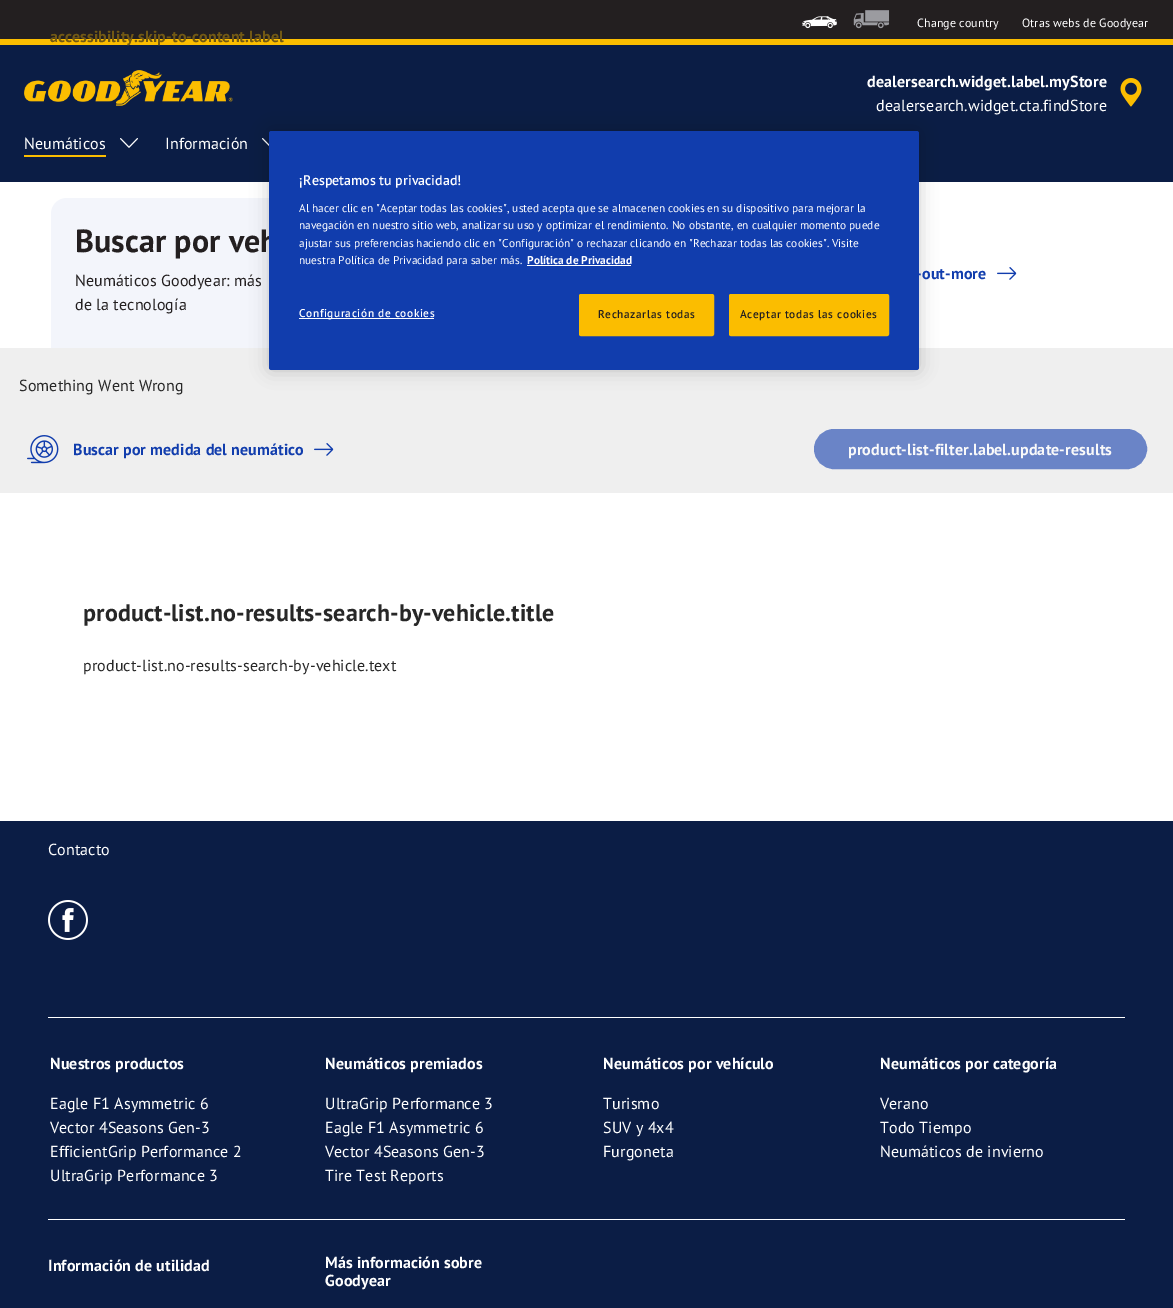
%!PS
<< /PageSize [1173 1308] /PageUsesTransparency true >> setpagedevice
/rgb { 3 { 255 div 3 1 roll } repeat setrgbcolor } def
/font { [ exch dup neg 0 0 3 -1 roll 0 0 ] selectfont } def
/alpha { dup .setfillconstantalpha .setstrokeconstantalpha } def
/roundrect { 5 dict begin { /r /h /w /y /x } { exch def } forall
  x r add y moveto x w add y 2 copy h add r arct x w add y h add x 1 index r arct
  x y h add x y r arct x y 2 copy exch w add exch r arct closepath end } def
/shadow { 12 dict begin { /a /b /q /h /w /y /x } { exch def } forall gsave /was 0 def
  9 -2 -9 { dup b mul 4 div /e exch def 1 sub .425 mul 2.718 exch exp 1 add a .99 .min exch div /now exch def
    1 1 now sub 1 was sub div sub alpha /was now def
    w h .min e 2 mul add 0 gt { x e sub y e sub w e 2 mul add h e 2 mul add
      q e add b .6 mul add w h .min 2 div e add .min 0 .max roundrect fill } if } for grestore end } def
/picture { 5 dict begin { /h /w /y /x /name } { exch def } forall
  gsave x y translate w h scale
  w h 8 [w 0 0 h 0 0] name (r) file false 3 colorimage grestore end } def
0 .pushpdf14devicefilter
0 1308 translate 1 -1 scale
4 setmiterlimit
255 255 255 rgb
0 0 1173 1308 rectfill
[
  [0 45 1173 137 11 29 69]
  [0 0 1173 39 35 31 32]
  [0 39 1173 6 251 189 0]
] { aload pop rgb rectfill } forall
(img/1.rgb) 802 16 35 13 picture
(img/2.rgb) 853 10 37 19 picture
(img/3.rgb) 1120 78 22 29 picture
(img/4.rgb) 24 70 209 36 picture
24 155 82 2 rectfill
(img/5.rgb) 120 138 18 10 picture
(img/6.rgb) 262 138 7 8 picture
243 245 251 rgb
67 198 moveto 595 198 lineto 604 198 611 205 611 214 curveto 611 348 lineto 51 348 lineto 51 214 lineto 51 205 58 198 67 198 curveto closepath fill
(img/7.rgb) 997 267 20 13 picture
239 239 239 rgb
0 348 1173 145 rectfill
(img/8.rgb) 27 435 32 29 picture
(img/9.rgb) 314 443 20 13 picture
106 132 199 rgb
815 430 331 38 19 roundrect gsave fill grestore
2 setlinewidth
stroke
0 0 0 rgb
269 131 650 239 2.5 9 0.2 shadow
11 29 69 rgb
0 821 1173 487 rectfill
(img/10.rgb) 48 900 40 40 picture
255 255 255 rgb
48 1017 1077 1 rectfill
48 1219 1077 1 rectfill
/PTSans-Regular 12 font
917 27 moveto 0.1 0 (Change country) ashow
1022 27 moveto 0.1 0 (Otras webs de Goodyear) ashow
/PTSans-Bold 16 font
867 87 moveto 0.1 0 (dealersearch.widget.label.myStore) ashow
/PTSans-Regular 16 font
876 111 moveto 0.1 0 (dealersearch.widget.cta.findStore) ashow
24 149 moveto 0.1 0 (Neumáticos) ashow
165 149 moveto 0.1 0 (Información) ashow
/PTSans-Bold 16 font
114 89 20 rgb
50 42 moveto 0.1 0 (accessibility.skip-to-content.label) ashow
/PTSans-Bold 32 font
35 31 32 rgb
75 252 moveto 0.1 0 (Buscar por veh) ashow
/PTSans-Regular 16 font
75 286 moveto 0.1 0 (Neumáticos Goodyear: más) ashow
75 310 moveto 0.1 0 (de la tecnología) ashow
/PTSans-Bold 16 font
17 61 173 rgb
916 279 moveto 0.1 0 (-out-more) ashow
/PTSans-Regular 16 font
39 39 39 rgb
19 391 moveto 0.1 0 (Something Went Wrong) ashow
/PTSans-Bold 16 font
17 61 173 rgb
73 455 moveto 0.1 0 (Buscar por medida del neumático) ashow
249 249 249 rgb
848 455 moveto 0.1 0 (product-list-filter.label.update-results) ashow
/PTSans-Bold 24 font
39 39 39 rgb
83 621 moveto 0.1 0 (product-list.no-results-search-by-vehicle.title) ashow
/PTSans-Regular 16 font
83 671 moveto 0.1 0 (product-list.no-results-search-by-vehicle.text) ashow
17 61 173 rgb
269 131 650 239 2.5 roundrect fill
/PTSans-SemiBold 14 font
255 255 255 rgb
299 185 moveto (¡Respetamos tu privacidad!) show
/PTSans-Regular 11.38 font
[
  [(Al hacer clic en "Aceptar todas las cookies", usted acepta que se almacenen cookies en su dispositivo para mejorar la) 299 212]
  [(navegación en nuestro sitio web, analizar su uso y optimizar el rendimiento. No obstante, en cualquier momento puede) 299 229]
  [(ajustar sus preferencias haciendo clic en "Configuración" o rechazar clicando en "Rechazar todas las cookies". Visite) 299 247]
  [(nuestra Política de Privacidad para saber más.) 299 264]
] { aload pop moveto show } forall
/PTSans-Bold 11.38 font
527 264 moveto (Política de Privacidad) show
527 265 104 1 rectfill
299 318 135 1 rectfill
/PTSans-SemiBold 11.38 font
299 317 moveto 0.6 0 (Configuración de cookies) ashow
251 189 0 rgb
579.5 294.5 134 41 1.5 roundrect gsave fill grestore
1 setlinewidth
stroke
35 31 32 rgb
598 318 moveto 0.6 0 (Rechazarlas todas) ashow
251 189 0 rgb
729.5 294.5 159 41 1.5 roundrect gsave fill grestore
stroke
35 31 32 rgb
740 318 moveto 0.6 0 (Aceptar todas las cookies) ashow
/PTSans-Regular 16 font
255 255 255 rgb
48 855 moveto 0.1 0 (Contacto) ashow
/PTSans-Bold 16 font
50 1069 moveto 0.1 0 (Nuestros productos) ashow
/PTSans-Regular 16 font
50 1109 moveto 0.1 0 (Eagle F1 Asymmetric 6) ashow
50 1133 moveto 0.1 0 (Vector 4Seasons Gen-3) ashow
50 1157 moveto 0.1 0 (EfficientGrip Performance 2) ashow
50 1181 moveto 0.1 0 (UltraGrip Performance 3) ashow
/PTSans-Bold 16 font
325 1069 moveto 0.1 0 (Neumáticos premiados) ashow
/PTSans-Regular 16 font
325 1109 moveto 0.1 0 (UltraGrip Performance 3) ashow
325 1133 moveto 0.1 0 (Eagle F1 Asymmetric 6) ashow
325 1157 moveto 0.1 0 (Vector 4Seasons Gen-3) ashow
325 1181 moveto 0.1 0 (Tire Test Reports) ashow
/PTSans-Bold 16 font
603 1069 moveto 0.1 0 (Neumáticos por vehículo) ashow
/PTSans-Regular 16 font
603 1109 moveto 0.1 0 (Turismo) ashow
603 1133 moveto 0.1 0 (SUV y 4x4) ashow
603 1157 moveto 0.1 0 (Furgoneta) ashow
/PTSans-Bold 16 font
880 1069 moveto 0.1 0 (Neumáticos por categoría) ashow
/PTSans-Regular 16 font
880 1109 moveto 0.1 0 (Verano) ashow
880 1133 moveto 0.1 0 (Todo Tiempo) ashow
880 1157 moveto 0.1 0 (Neumáticos de invierno) ashow
/PTSans-Bold 16 font
48 1271 moveto 0.1 0 (Información de utilidad) ashow
325 1268 moveto 0.1 0 (Más información sobre) ashow
325 1286 moveto 0.1 0 (Goodyear) ashow
.poppdf14devicefilter showpage
